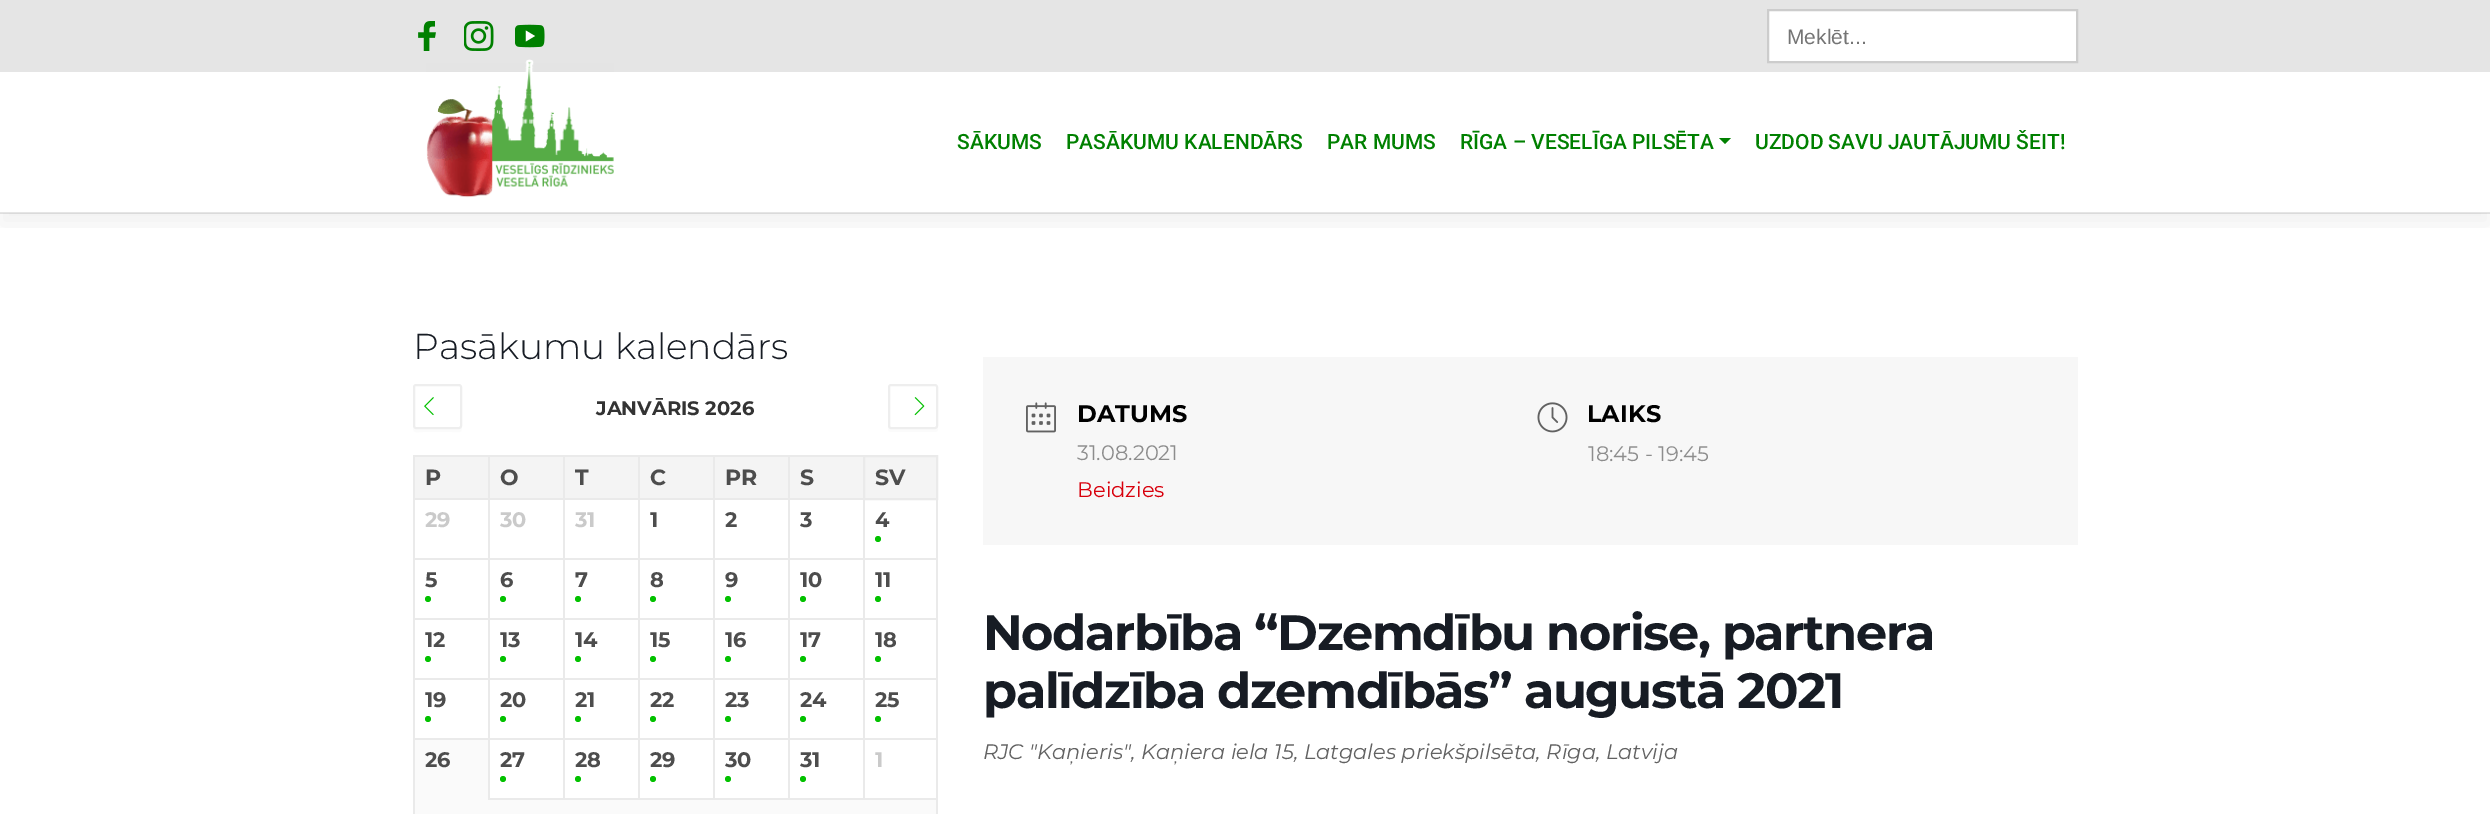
%!PS
<< /PageSize [2490 814] /PageUsesTransparency true >> setpagedevice
/rgb { 3 { 255 div 3 1 roll } repeat setrgbcolor } def
/font { [ exch dup neg 0 0 3 -1 roll 0 0 ] selectfont } def
/alpha { dup .setfillconstantalpha .setstrokeconstantalpha } def
/circle { newpath 0 360 arc closepath } def
/roundrect { 5 dict begin { /r /h /w /y /x } { exch def } forall
  x r add y moveto x w add y 2 copy h add r arct x w add y h add x 1 index r arct
  x y h add x y r arct x y 2 copy exch w add exch r arct closepath end } def
/shadow { 12 dict begin { /a /b /q /h /w /y /x } { exch def } forall gsave /was 0 def
  9 -2 -9 { dup b mul 4 div /e exch def 1 sub .425 mul 2.718 exch exp 1 add a .99 .min exch div /now exch def
    1 1 now sub 1 was sub div sub alpha /was now def
    w h .min e 2 mul add 0 gt { x e sub y e sub w e 2 mul add h e 2 mul add
      q e add b .6 mul add w h .min 2 div e add .min 0 .max roundrect fill } if } for grestore end } def
/picture { 5 dict begin { /h /w /y /x /name } { exch def } forall
  gsave x y translate w h scale
  w h 8 [w 0 0 h 0 0] name (r) file false 3 colorimage grestore end } def
0 .pushpdf14devicefilter
0 814 translate 1 -1 scale
4 setmiterlimit
255 255 255 rgb
0 0 2490 814 rectfill
229 229 229 rgb
0 0 2490 72 rectfill
gsave
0 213 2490 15 rectclip
0 0 0 rgb
0 84 2490 141 0 12 0.05 shadow
grestore
(img/1.rgb) 418 21 18 30 picture
(img/2.rgb) 464 21 30 30 picture
(img/3.rgb) 515 24 30 24 picture
255 255 255 rgb
1768 10 moveto 2077 10 lineto 2077 62 lineto 1768 62 lineto closepath gsave fill grestore
204 204 204 rgb
2 setlinewidth
stroke
0.1 alpha
0 0 0 rgb
0 212 2490 2 rectfill
1 alpha
(img/4.rgb) 426 59 188 139 picture
0 128 0 rgb
1719 138 moveto 1731 138 lineto 1725 144 lineto closepath fill
251 251 251 rgb
413 428 moveto 413 434 418 432 423 432 curveto 452 432 lineto 460 432 462 434 462 426 curveto 462 428 461 429 459 429 curveto 416 429 lineto 414 429 414 428 413 428 curveto closepath fill
238 238 238 rgb
414 385 47 43 2 roundrect stroke
(img/5.rgb) 424 397 10 19 picture
251 251 251 rgb
888 426 moveto 888 429 lineto 888 431 889 432 891 432 curveto 935 432 lineto 937 432 938 431 938 429 curveto 938 390 lineto 938 388 lineto 938 393 938 426 937 428 curveto 935 429 lineto 890 429 lineto 889 428 lineto closepath fill
255 255 255 rgb
889 385 48 43 2 roundrect gsave fill grestore
238 238 238 rgb
stroke
(img/6.rgb) 914 397 11 19 picture
[
  [415 457 73 41 244 244 244]
  [413 455 450 2 234 234 234]
  [413 498 450 2 234 234 234]
  [413 455 2 45 234 234 234]
  [490 457 73 41 244 244 244]
  [488 455 2 45 234 234 234]
  [565 457 73 41 244 244 244]
  [563 455 2 45 234 234 234]
  [640 457 73 41 244 244 244]
  [638 455 2 45 234 234 234]
  [715 457 73 41 244 244 244]
  [713 455 2 45 234 234 234]
  [790 457 73 41 244 244 244]
  [788 455 2 45 234 234 234]
] { aload pop rgb rectfill } forall
244 244 244 rgb
864 456 moveto 937 456 lineto 937 499 lineto 864 499 lineto closepath gsave fill grestore
234 234 234 rgb
stroke
[
  [413 558 450 2 234 234 234]
  [413 500 2 60 234 234 234]
  [488 500 2 60 234 234 234]
  [563 500 2 60 234 234 234]
  [638 500 2 60 234 234 234]
  [713 500 2 60 234 234 234]
  [788 500 2 60 234 234 234]
  [936 500 2 300 234 234 234]
  [863 558 75 2 234 234 234]
  [863 500 2 60 234 234 234]
] { aload pop rgb rectfill } forall
3 193 0 rgb
878 539 3 circle fill
234 234 234 rgb
413 618 525 2 rectfill
413 560 2 60 rectfill
3 193 0 rgb
428 599 3 circle fill
234 234 234 rgb
488 560 2 60 rectfill
3 193 0 rgb
503 599 3 circle fill
234 234 234 rgb
563 560 2 60 rectfill
3 193 0 rgb
578 599 3 circle fill
234 234 234 rgb
638 560 2 60 rectfill
3 193 0 rgb
653 599 3 circle fill
234 234 234 rgb
713 560 2 60 rectfill
3 193 0 rgb
728 599 3 circle fill
234 234 234 rgb
788 560 2 60 rectfill
3 193 0 rgb
803 599 3 circle fill
234 234 234 rgb
863 560 2 60 rectfill
3 193 0 rgb
878 599 3 circle fill
234 234 234 rgb
413 678 525 2 rectfill
413 620 2 60 rectfill
3 193 0 rgb
428 659 3 circle fill
234 234 234 rgb
488 620 2 60 rectfill
3 193 0 rgb
503 659 3 circle fill
234 234 234 rgb
563 620 2 60 rectfill
3 193 0 rgb
578 659 3 circle fill
234 234 234 rgb
638 620 2 60 rectfill
3 193 0 rgb
653 659 3 circle fill
234 234 234 rgb
713 620 2 60 rectfill
3 193 0 rgb
728 659 3 circle fill
234 234 234 rgb
788 620 2 60 rectfill
3 193 0 rgb
803 659 3 circle fill
234 234 234 rgb
863 620 2 60 rectfill
3 193 0 rgb
878 659 3 circle fill
234 234 234 rgb
413 738 525 2 rectfill
413 680 2 120 rectfill
3 193 0 rgb
428 719 3 circle fill
234 234 234 rgb
488 680 2 60 rectfill
3 193 0 rgb
503 719 3 circle fill
234 234 234 rgb
563 680 2 60 rectfill
3 193 0 rgb
578 719 3 circle fill
234 234 234 rgb
638 680 2 60 rectfill
3 193 0 rgb
653 719 3 circle fill
234 234 234 rgb
713 680 2 60 rectfill
3 193 0 rgb
728 719 3 circle fill
234 234 234 rgb
788 680 2 60 rectfill
3 193 0 rgb
803 719 3 circle fill
234 234 234 rgb
863 680 2 60 rectfill
3 193 0 rgb
878 719 3 circle fill
[
  [415 740 73 60 250 250 250]
  [488 798 450 2 234 234 234]
  [488 740 2 60 234 234 234]
] { aload pop rgb rectfill } forall
3 193 0 rgb
503 779 3 circle fill
234 234 234 rgb
563 740 2 60 rectfill
3 193 0 rgb
578 779 3 circle fill
234 234 234 rgb
638 740 2 60 rectfill
3 193 0 rgb
653 779 3 circle fill
234 234 234 rgb
713 740 2 60 rectfill
3 193 0 rgb
728 779 3 circle fill
234 234 234 rgb
788 740 2 60 rectfill
3 193 0 rgb
803 779 3 circle fill
[
  [863 740 2 60 234 234 234]
  [415 800 521 14 250 250 250]
  [936 800 2 14 234 234 234]
  [413 800 2 14 234 234 234]
  [983 357 1095 188 247 247 247]
] { aload pop rgb rectfill } forall
(img/7.rgb) 1026 402 30 31 picture
(img/8.rgb) 1537 402 31 31 picture
/LiberationSans-Regular 21 font
117 117 117 rgb
1787 44 moveto (Meklēt...) show
/Roboto-Medium 21 font
0 128 0 rgb
[
  [(SĀKUMS) 957 149]
  [(PASĀKUMU KALENDĀRS) 1066 149]
  [(PAR MUMS) 1327 149]
  [(RĪGA – VESELĪGA PILSĒTA) 1460 149]
  [(UZDOD SAVU JAUTĀJUMU ŠEIT!) 1755 149]
] { aload pop moveto show } forall
/Montserrat-Light 36 font
23 28 36 rgb
413 359 moveto (Pasākumu kalendārs) show
/Montserrat-Bold 19.5 font
51 51 51 rgb
596 415 moveto (JANVĀRIS 2026) show
/Montserrat-Bold 22 font
77 77 77 rgb
[
  [(P) 425 485]
  [(O) 500 485]
  [(T) 575 485]
  [(C) 650 485]
  [(PR) 725 485]
  [(S) 800 485]
  [(SV) 875 485]
] { aload pop moveto show } forall
/Montserrat-Bold 21 font
202 202 202 rgb
[
  [(29) 425 527]
  [(30) 500 527]
  [(31) 575 527]
] { aload pop moveto show } forall
77 77 77 rgb
[
  [(1) 650 527]
  [(2) 725 527]
  [(3) 800 527]
  [(4) 875 527]
  [(5) 425 587]
  [(6) 500 587]
  [(7) 575 587]
  [(8) 650 587]
  [(9) 725 587]
  [(10) 800 587]
  [(11) 875 587]
  [(12) 425 647]
  [(13) 500 647]
  [(14) 575 647]
  [(15) 650 647]
  [(16) 725 647]
  [(17) 800 647]
  [(18) 875 647]
  [(19) 425 707]
  [(20) 500 707]
  [(21) 575 707]
  [(22) 650 707]
  [(23) 725 707]
  [(24) 800 707]
  [(25) 875 707]
  [(26) 425 767]
  [(27) 500 767]
  [(28) 575 767]
  [(29) 650 767]
  [(30) 725 767]
  [(31) 800 767]
] { aload pop moveto show } forall
202 202 202 rgb
875 767 moveto (1) show
/Montserrat-Bold 24 font
0 0 0 rgb
1077 422 moveto (DATUMS) show
/Montserrat-Regular 21 font
141 141 141 rgb
1077 460 moveto (31.08.2021) show
216 0 12 rgb
1077 497 moveto (Beidzies) show
/Montserrat-Bold 24 font
0 0 0 rgb
1587 422 moveto (LAIKS) show
/Montserrat-Regular 21 font
141 141 141 rgb
1588 461 moveto (18:45 - 19:45) show
/Montserrat-Bold 49.5 font
23 28 36 rgb
983 650 moveto -1.5 0 (Nodarbība “Dzemdību norise, partnera) ashow
983 708 moveto -1.5 0 (palīdzība dzemdībās” augustā 2021) ashow
/Montserrat-Italic 21 font
98 98 98 rgb
983 759 moveto (RJC "Kaņieris", Kaņiera iela 15, Latgales priekšpilsēta, Rīga, Latvija) show
.poppdf14devicefilter showpage
